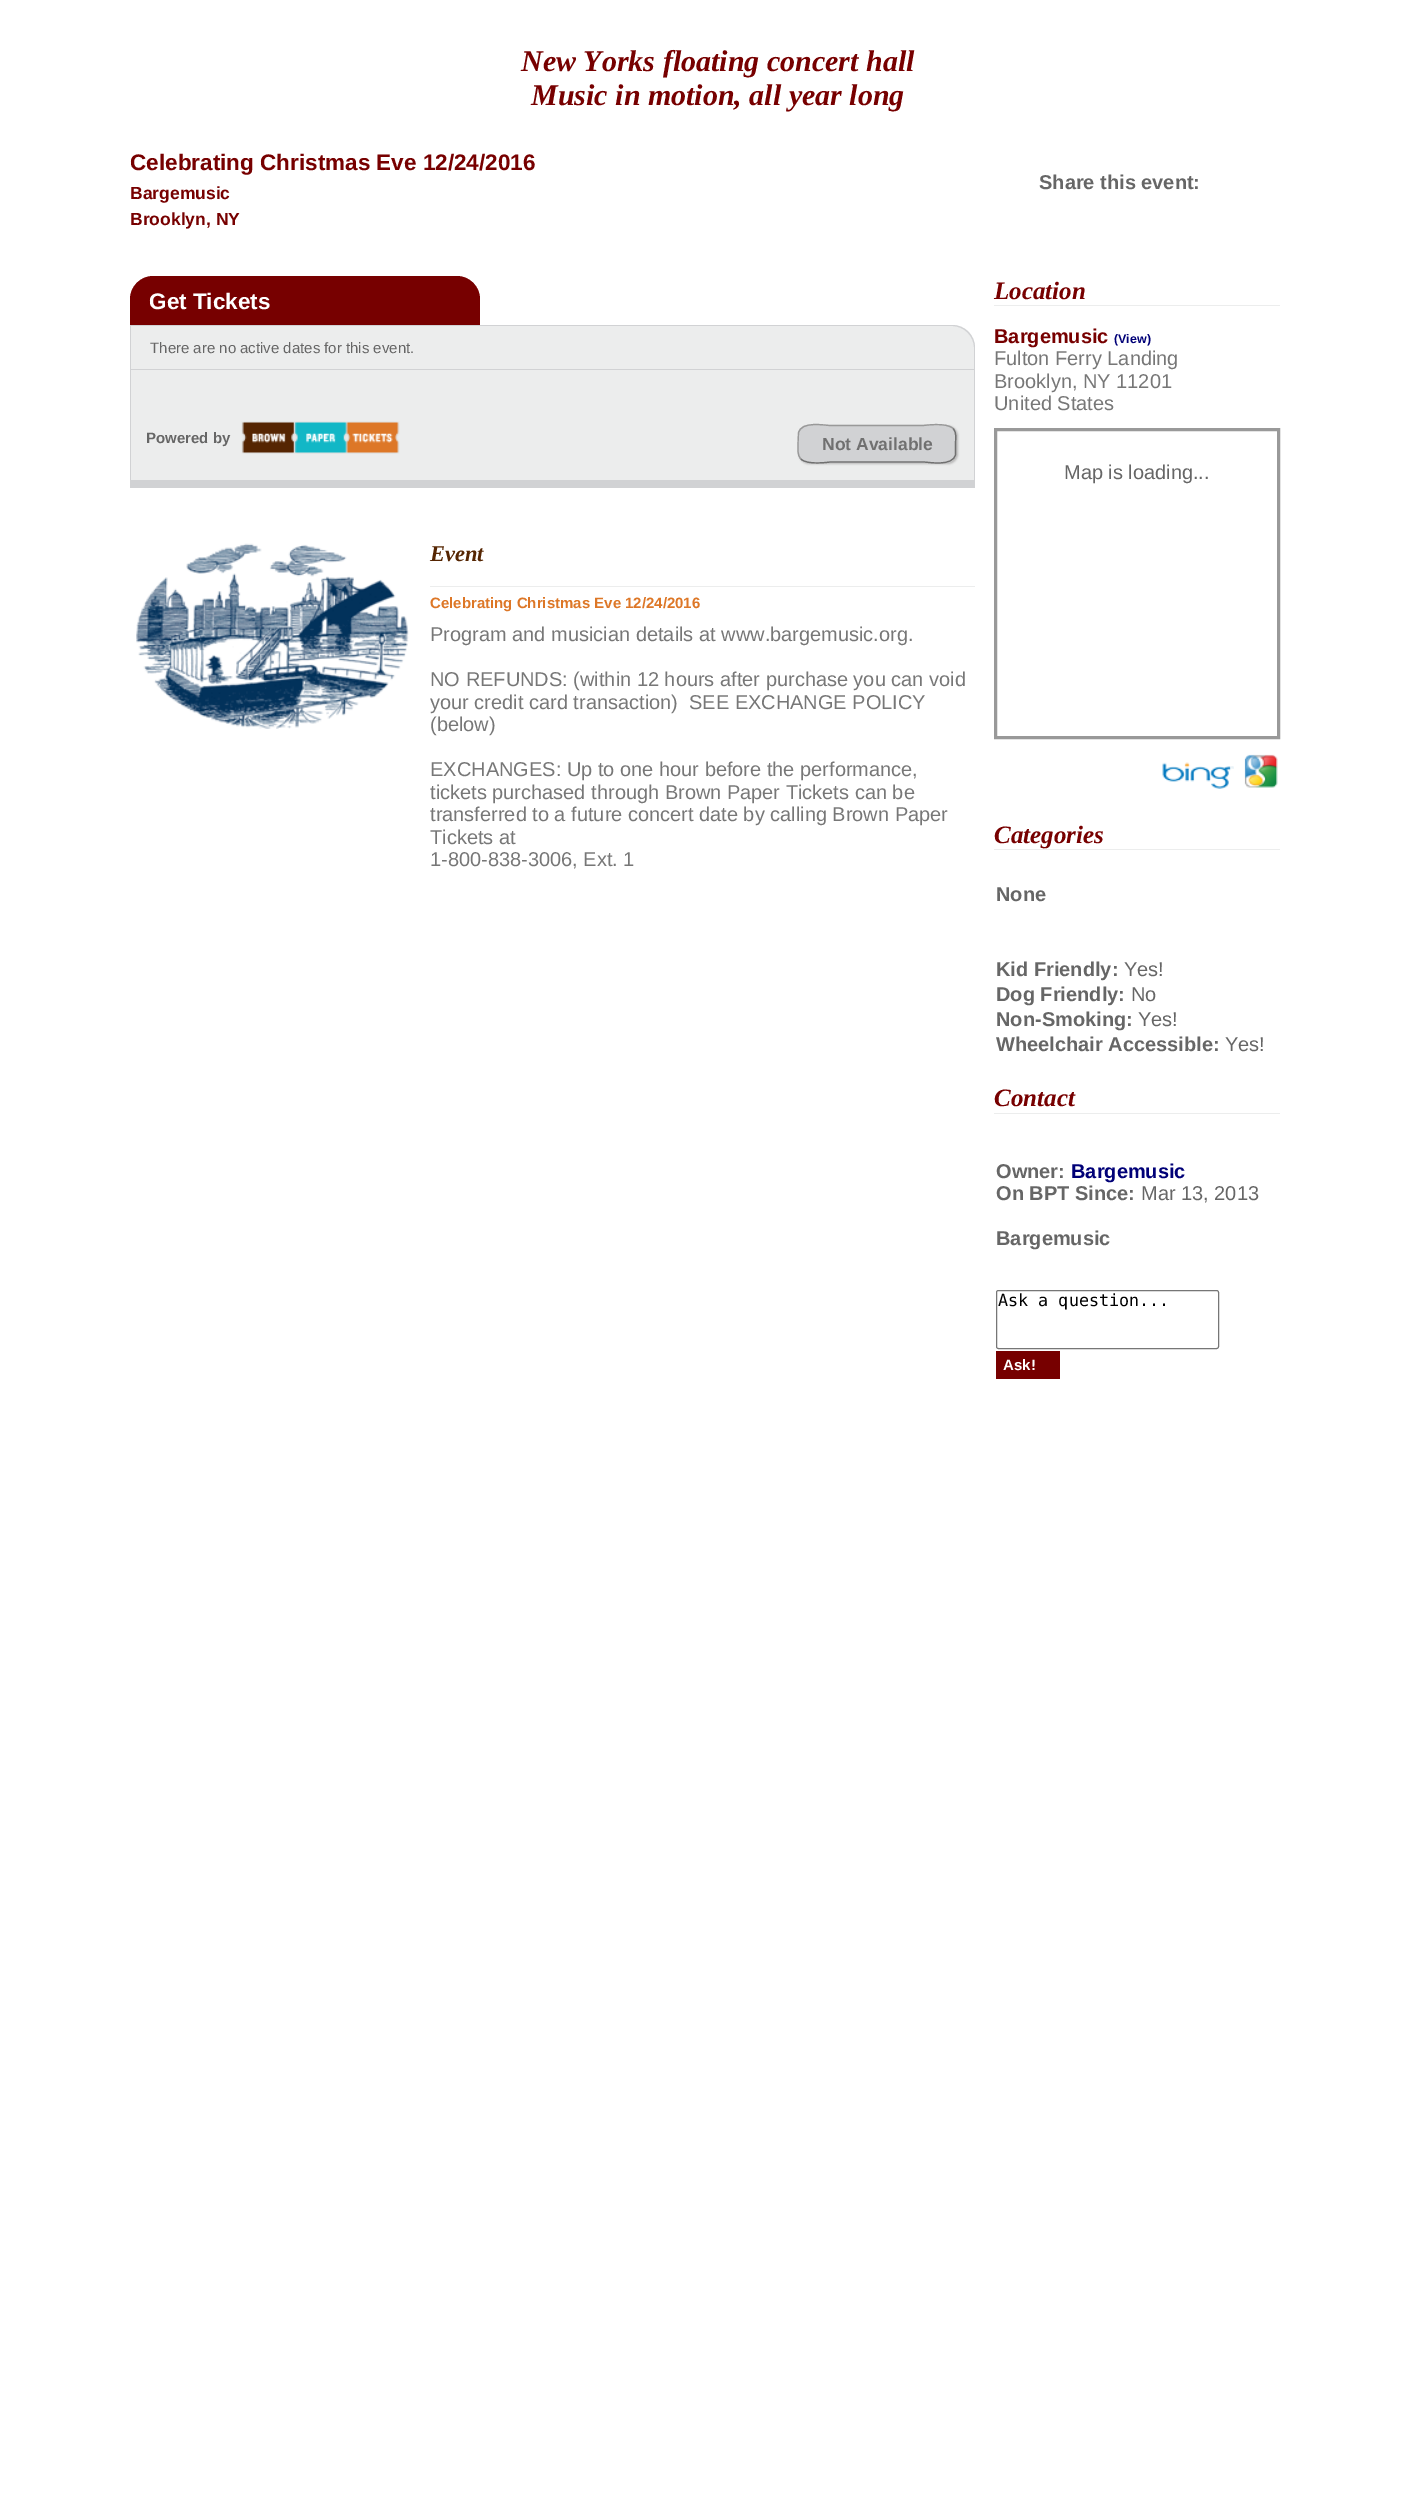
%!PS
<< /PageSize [1410 2515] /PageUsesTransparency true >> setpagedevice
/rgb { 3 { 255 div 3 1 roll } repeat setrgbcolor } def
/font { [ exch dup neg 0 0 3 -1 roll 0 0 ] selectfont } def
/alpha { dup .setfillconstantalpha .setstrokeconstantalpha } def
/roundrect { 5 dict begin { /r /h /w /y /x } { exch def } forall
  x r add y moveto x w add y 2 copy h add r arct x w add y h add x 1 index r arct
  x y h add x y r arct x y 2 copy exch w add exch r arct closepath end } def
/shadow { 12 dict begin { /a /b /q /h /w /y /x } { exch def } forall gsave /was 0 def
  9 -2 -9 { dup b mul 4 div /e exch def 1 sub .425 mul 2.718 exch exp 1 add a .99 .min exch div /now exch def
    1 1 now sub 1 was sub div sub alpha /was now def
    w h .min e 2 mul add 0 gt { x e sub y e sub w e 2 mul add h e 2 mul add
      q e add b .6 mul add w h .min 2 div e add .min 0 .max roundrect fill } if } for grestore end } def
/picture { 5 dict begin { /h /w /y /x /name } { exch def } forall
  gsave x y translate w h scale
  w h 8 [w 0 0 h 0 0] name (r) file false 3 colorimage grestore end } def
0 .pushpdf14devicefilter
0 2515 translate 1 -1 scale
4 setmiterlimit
255 255 255 rgb
0 0 1410 2515 rectfill
119 0 0 rgb
153 276 moveto 457 276 lineto 469.5 276 480 286.5 480 299 curveto 480 325 lineto 130 325 lineto 130 299 lineto 130 286.5 140.5 276 153 276 curveto closepath fill
236 237 237 rgb
130 325 moveto 952 325 lineto 964.5 325 975 335.5 975 348 curveto 975 369 lineto 130 369 lineto closepath fill
209 210 212 rgb
130 325 moveto 952 325 lineto 965 325 975 335 975 348 curveto 975 369 lineto 130 369 lineto closepath 131 326 moveto 952 326 lineto 964 326 974 336 974 348 curveto 974 369 lineto 131 369 lineto closepath eofill
[
  [131 370 843 110 236 237 237]
  [130 369 845 1 209 210 212]
  [974 369 1 119 209 210 212]
  [130 480 845 8 209 210 212]
  [130 369 1 119 209 210 212]
] { aload pop rgb rectfill } forall
(img/1.rgb) 241 421 159 33 picture
184 184 184 rgb
799 426 159 38 10 1 1 shadow
209 210 212 rgb
798 425 158 38 10 roundrect fill
112 112 112 rgb
1.2 setlinewidth
953 428.5 moveto 957 432.5 955.5 438.5 955.5 444 curveto 955.5 454.5 lineto 953 467 928.5 462 923 462 curveto 830.5 462 lineto 829.5 462 807 465.5 801 459 curveto stroke
153 153 153 rgb
801 459 moveto 797 455 798 449 798 444 curveto 798.5 433 lineto 801 420.5 825.5 425.5 830.5 425.5 curveto 923 425.5 lineto 924 425.5 946.5 422 953 428.5 curveto stroke
(img/2.rgb) 136 543 273 186 picture
236 237 237 rgb
430 586 545 1 rectfill
994 305 286 1 rectfill
153 153 153 rgb
3 setlinewidth
995.5 429.5 283 308 rectstroke
(img/3.rgb) 1162 762 72 27 picture
(img/4.rgb) 1244 754 34 34 picture
236 237 237 rgb
994 849 286 1 rectfill
994 1113 286 1 rectfill
118 118 118 rgb
1 setlinewidth
996.5 1290.5 222 58 2 roundrect stroke
119 0 0 rgb
996 1351 64 28 rectfill
/LiberationSerif-BoldItalic 30 font
521 71 moveto (New Yorks floating concert hall) show
531 105 moveto (Music in motion, all year long) show
/LiberationSans-Bold 22.5 font
130 170 moveto (Celebrating Christmas Eve 12/24/2016) show
/LiberationSans-Bold 17.5 font
130 199 moveto (Bargemusic) show
130 225 moveto (Brooklyn, NY) show
/LiberationSans-Bold 20 font
102 102 102 rgb
1039 189 moveto (Share this event:) show
/LiberationSans-Bold 22.5 font
255 255 255 rgb
149 309 moveto (Get Tickets) show
/LiberationSans-Regular 15 font
102 102 102 rgb
150 353 moveto (There are no active dates for this event.) show
/LiberationSans-Bold 15 font
146 443 moveto (Powered by) show
/LiberationSans-Bold 17.5 font
112 112 112 rgb
822 450 moveto (Not Available) show
/LiberationSerif-BoldItalic 22.5 font
85 37 2 rgb
430 561 moveto (Event) show
/LiberationSans-Bold 15 font
221 119 39 rgb
430 608 moveto (Celebrating Christmas Eve 12/24/2016) show
/LiberationSans-Regular 20 font
119 119 119 rgb
[
  [(Program and musician details at www.bargemusic.org.) 430 641]
  [(NO REFUNDS: \(within 12 hours after purchase you can void) 430 686]
  [(your credit card transaction\)  SEE EXCHANGE POLICY) 430 709]
  [(\(below\)) 430 731]
  [(EXCHANGES: Up to one hour before the performance,) 430 776]
  [(tickets purchased through Brown Paper Tickets can be) 430 799]
  [(transferred to a future concert date by calling Brown Paper) 430 821]
  [(Tickets at) 430 844]
  [(1-800-838-3006, Ext. 1) 430 866]
] { aload pop moveto show } forall
/LiberationSerif-BoldItalic 25 font
119 0 0 rgb
994 299 moveto (Location) show
/LiberationSans-Bold 20 font
994 343 moveto (Bargemusic) show
/LiberationSans-Bold 12.5 font
0 0 119 rgb
1114 343 moveto (\(View\)) show
/LiberationSans-Regular 20 font
119 119 119 rgb
[
  [(Fulton Ferry Landing) 994 365]
  [(Brooklyn, NY 11201) 994 388]
  [(United States) 994 410]
] { aload pop moveto show } forall
102 102 102 rgb
1064 479 moveto (Map is loading...) show
/LiberationSerif-BoldItalic 25 font
119 0 0 rgb
994 843 moveto (Categories) show
/LiberationSans-Bold 20 font
102 102 102 rgb
996 901 moveto (None) show
996 976 moveto (Kid Friendly:) show
/LiberationSans-Regular 20 font
1124 976 moveto (Yes!) show
/LiberationSans-Bold 20 font
996 1001 moveto (Dog Friendly:) show
/LiberationSans-Regular 20 font
1131 1001 moveto (No) show
/LiberationSans-Bold 20 font
996 1026 moveto (Non-Smoking:) show
/LiberationSans-Regular 20 font
1138 1026 moveto (Yes!) show
/LiberationSans-Bold 20 font
996 1051 moveto (Wheelchair Accessible:) show
/LiberationSans-Regular 20 font
1225 1051 moveto (Yes!) show
/LiberationSerif-BoldItalic 25 font
119 0 0 rgb
994 1106 moveto (Contact) show
/LiberationSans-Bold 20 font
102 102 102 rgb
996 1178 moveto (Owner:) show
0 0 119 rgb
1071 1178 moveto (Bargemusic) show
102 102 102 rgb
996 1200 moveto (On BPT Since:) show
/LiberationSans-Regular 20 font
1141 1200 moveto (Mar 13, 2013) show
/LiberationSans-Bold 20 font
996 1245 moveto (Bargemusic) show
/DejaVuSansMono-Regular 16.75 font
0 0 0 rgb
998 1306 moveto (Ask a question...) show
/LiberationSans-Bold 15 font
255 255 255 rgb
1003 1370 moveto (Ask!) show
.poppdf14devicefilter showpage
